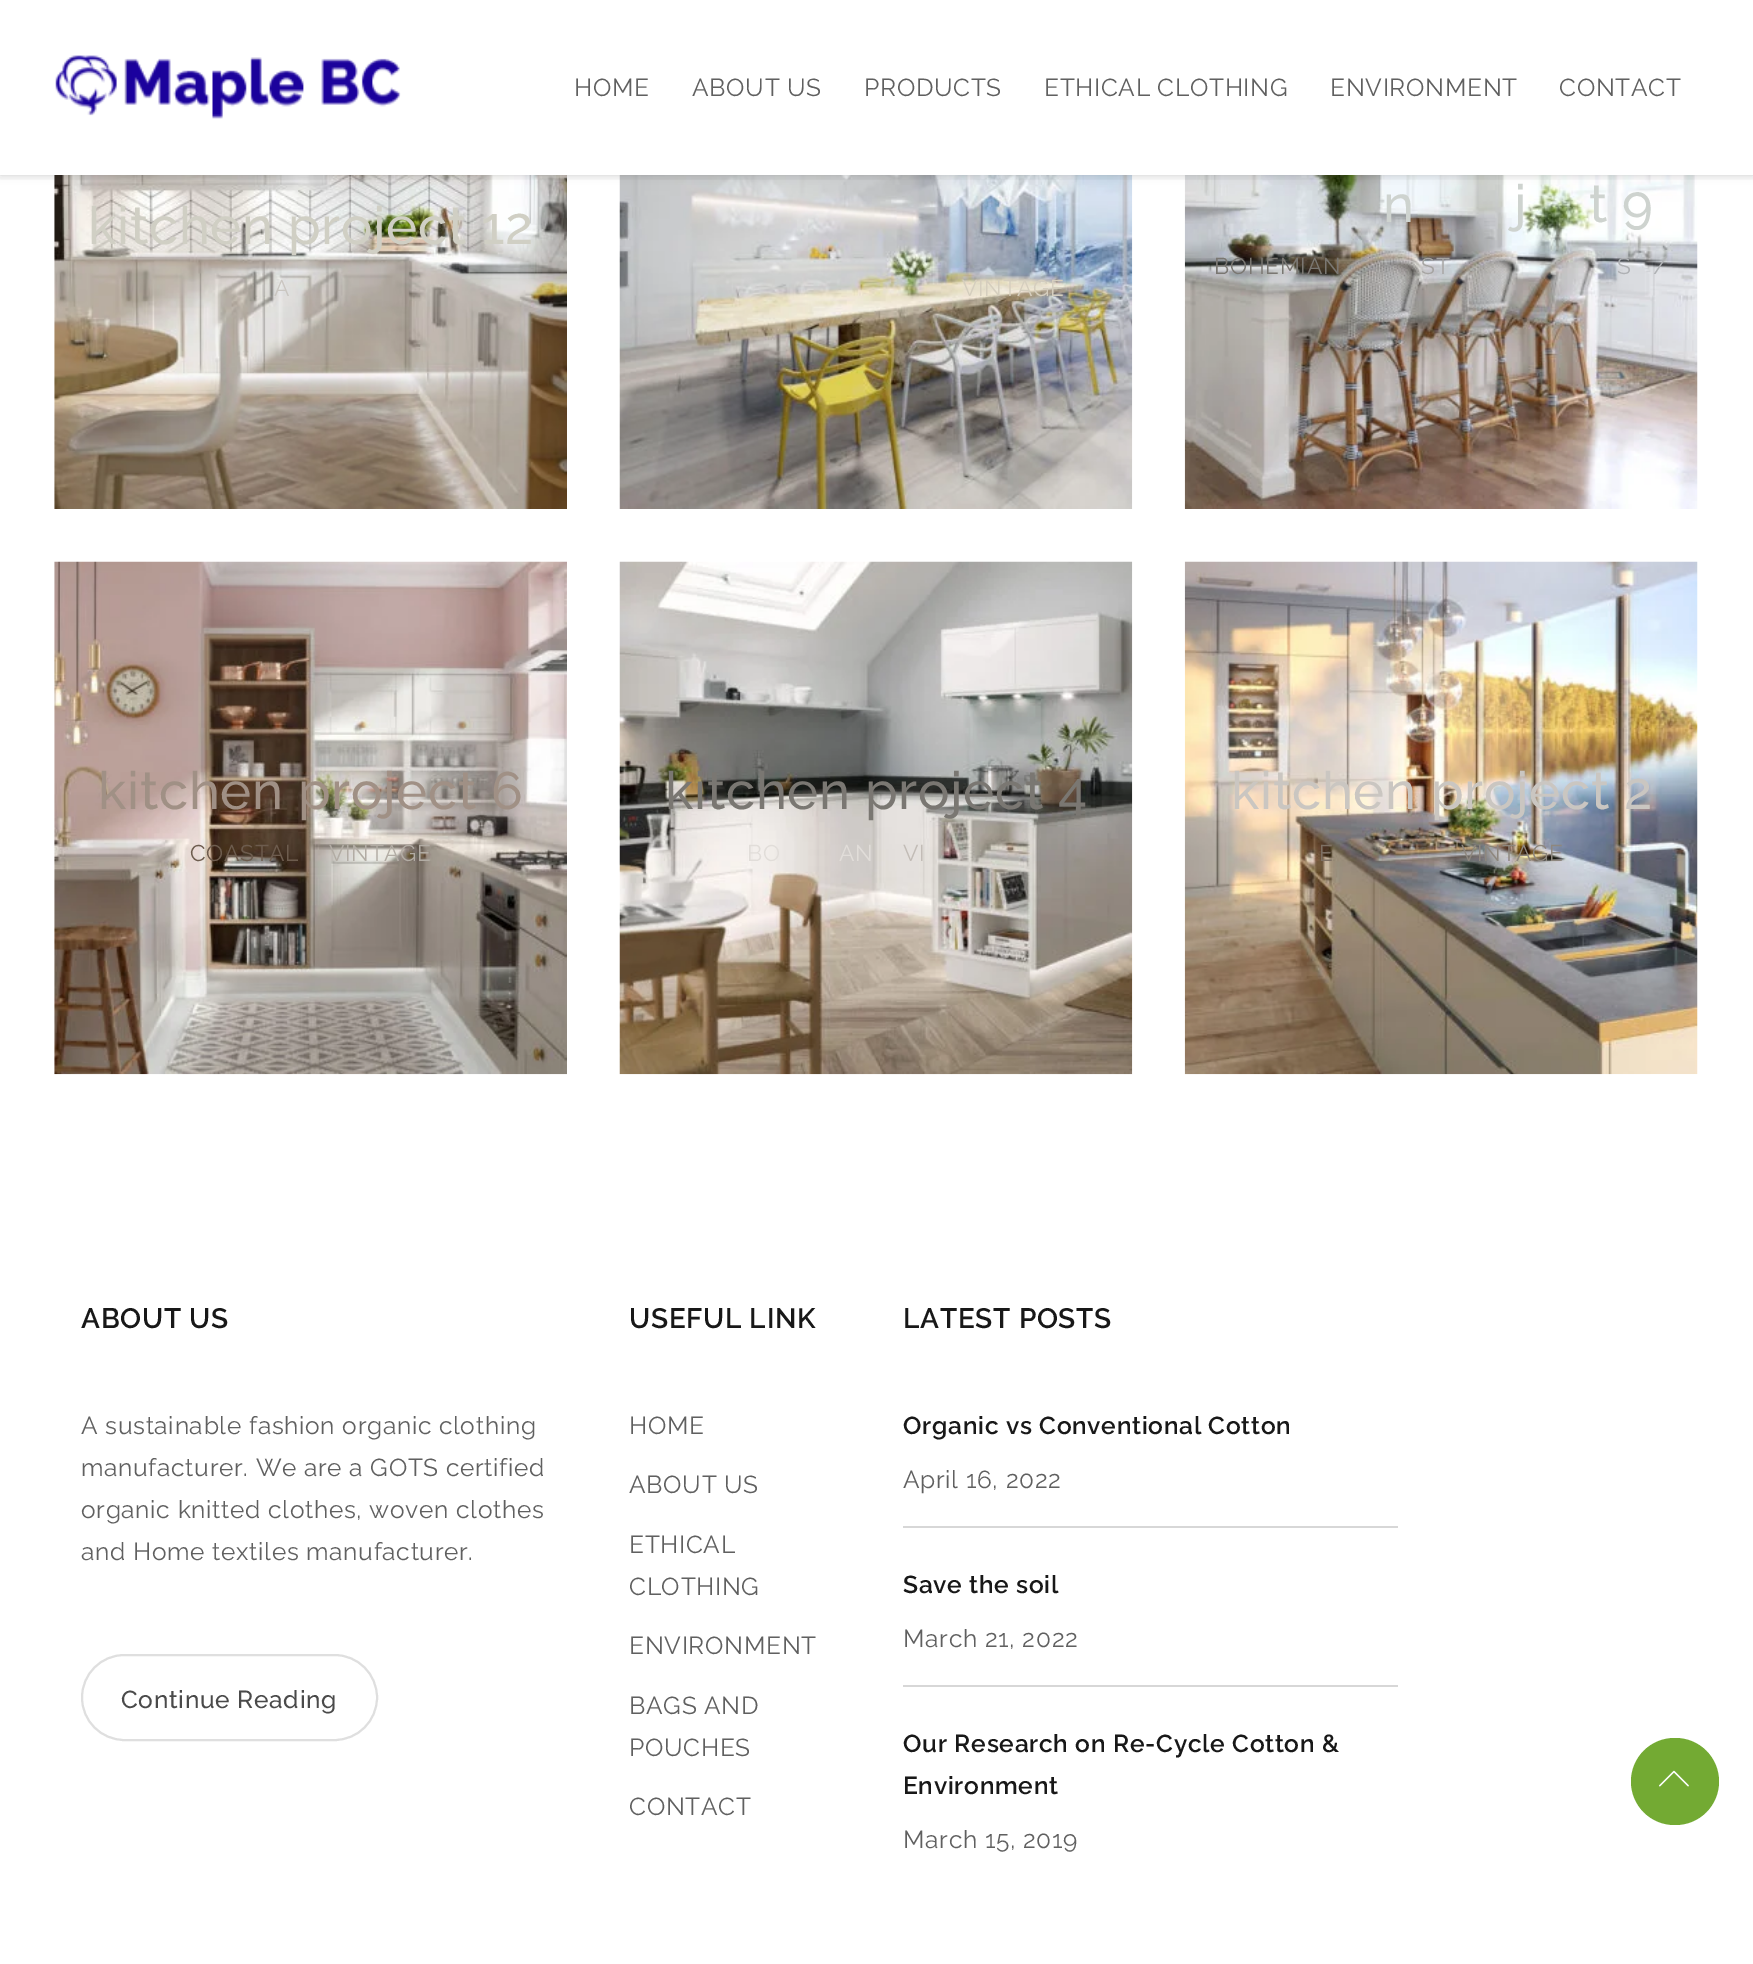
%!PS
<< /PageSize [1753 1964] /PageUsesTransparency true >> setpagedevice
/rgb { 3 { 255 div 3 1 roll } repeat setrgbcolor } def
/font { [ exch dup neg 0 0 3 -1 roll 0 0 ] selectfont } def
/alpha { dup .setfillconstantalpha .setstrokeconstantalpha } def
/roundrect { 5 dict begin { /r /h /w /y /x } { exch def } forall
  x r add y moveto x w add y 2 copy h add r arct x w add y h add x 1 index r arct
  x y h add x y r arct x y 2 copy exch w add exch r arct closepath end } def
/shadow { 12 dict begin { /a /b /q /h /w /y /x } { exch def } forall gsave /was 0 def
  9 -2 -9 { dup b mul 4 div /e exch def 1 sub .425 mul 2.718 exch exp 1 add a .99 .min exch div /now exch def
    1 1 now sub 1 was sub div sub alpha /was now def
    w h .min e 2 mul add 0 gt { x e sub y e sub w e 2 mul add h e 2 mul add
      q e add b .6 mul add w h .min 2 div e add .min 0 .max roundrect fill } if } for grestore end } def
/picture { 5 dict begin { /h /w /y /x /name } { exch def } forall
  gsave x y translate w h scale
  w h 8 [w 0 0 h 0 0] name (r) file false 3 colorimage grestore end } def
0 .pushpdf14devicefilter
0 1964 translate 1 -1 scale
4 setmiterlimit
255 255 255 rgb
0 0 1753 1964 rectfill
(img/2.rgb) 54 175 513 334 picture
(img/3.rgb) 619 175 514 334 picture
(img/4.rgb) 1184 175 514 334 picture
0 0 0 rgb
0 0 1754 175 0 4.5 0.1 shadow
255 255 255 rgb
0 0 1753 175 rectfill
gsave
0 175 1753 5 rectclip
0 0 0 rgb
0 0 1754 175 0 6 0.1 shadow
grestore
(img/1.rgb) 55 55 346 64 picture
(img/5.rgb) 54 561 513 514 picture
(img/6.rgb) 619 561 514 514 picture
(img/7.rgb) 1184 561 514 514 picture
223 223 223 rgb
2 setlinewidth
82 1655 295 85 42.5 roundrect stroke
215 215 215 rgb
903 1526 495 2 rectfill
903 1685 495 2 rectfill
115 170 51 rgb
1631 1738 88 87 43.5 roundrect fill
(img/8.rgb) 1659 1770 30 17 picture
/Raleway-Regular 24.5 font
96 96 96 rgb
574 96 moveto 0.7 0 (HOME) ashow
692 96 moveto 0.7 0 (ABOUT US) ashow
864 96 moveto 0.7 0 (PRODUCTS) ashow
1044 96 moveto 0.7 0 (ETHICAL CLOTHING) ashow
1330 96 moveto 0.7 0 (ENVIRONMENT) ashow
1559 96 moveto 0.7 0 (CONTACT) ashow
/Raleway-Medium 52.5 font
208 207 196 rgb
88 244 moveto 0.7 0 (kitchen project 12) ashow
/Raleway-Regular 22.75 font
202 198 193 rgb
274 296 moveto 0.7 0 (A) ashow
213 206 190 rgb
962 296 moveto 0.7 0 (VINTAGE) ashow
/Raleway-Medium 52.5 font
206 211 207 rgb
1383 222 moveto 0.7 0 (n) ashow
1514 222 moveto 0.7 0 (j) ashow
1589 222 moveto 0.7 0 (t 9) ashow
/Raleway-Regular 22.75 font
122 119 114 rgb
1214 274 moveto 0.7 0 (BOHEMIAN) ashow
167 165 163 rgb
1421 274 moveto 0.7 0 (ST) ashow
175 177 180 rgb
1617 274 moveto 0.7 0 (S) ashow
/Raleway-Regular 24.5 font
1653 274 moveto 0.7 0 (/) ashow
/Raleway-Medium 52.5 font
160 144 133 rgb
98 809 moveto 0.7 0 (kitchen project 6) ashow
/Raleway-Regular 22.75 font
109 92 78 rgb
190 861 moveto 0.7 0 (COASTAL) ashow
178 172 164 rgb
329 861 moveto 0.7 0 (VINTAGE) ashow
/Raleway-Medium 52.5 font
122 119 114 rgb
665 809 moveto 0.7 0 (kitchen project 4) ashow
/Raleway-Regular 22.75 font
225 221 217 rgb
747 861 moveto 0.7 0 (BO) ashow
839 861 moveto 0.7 0 (AN) ashow
194 188 182 rgb
903 861 moveto 0.7 0 (VI) ashow
/Raleway-Medium 52.5 font
202 198 193 rgb
1231 809 moveto 0.7 0 (kitchen project 2) ashow
/Raleway-Regular 22.75 font
125 112 100 rgb
1319 861 moveto 0.7 0 (E) ashow
142 135 126 rgb
1461 861 moveto 0.7 0 (VINTAGE) ashow
/Raleway-SemiBold 28 font
24 24 24 rgb
81 1328 moveto 0.7 0 (ABOUT US) ashow
/Raleway-Regular 24.5 font
96 96 96 rgb
81 1434 moveto 0.7 0 (A sustainable fashion organic clothing) ashow
81 1476 moveto 0.7 0 (manufacturer. We are a GOTS certified) ashow
81 1518 moveto 0.7 0 (organic knitted clothes, woven clothes) ashow
81 1560 moveto 0.7 0 (and Home textiles manufacturer.) ashow
/Raleway-Medium 24.5 font
74 74 74 rgb
121 1708 moveto 0.7 0 (Continue Reading) ashow
/Raleway-SemiBold 28 font
24 24 24 rgb
629 1328 moveto 0.7 0 (USEFUL LINK) ashow
/Raleway-Regular 24.5 font
96 96 96 rgb
629 1434 moveto 0.7 0 (HOME) ashow
629 1493 moveto 0.7 0 (ABOUT US) ashow
629 1553 moveto 0.7 0 (ETHICAL) ashow
629 1595 moveto 0.7 0 (CLOTHING) ashow
629 1654 moveto 0.7 0 (ENVIRONMENT) ashow
629 1714 moveto 0.7 0 (BAGS AND) ashow
629 1756 moveto 0.7 0 (POUCHES) ashow
629 1815 moveto 0.7 0 (CONTACT) ashow
/Raleway-SemiBold 28 font
24 24 24 rgb
903 1328 moveto 0.7 0 (LATEST POSTS) ashow
/Raleway-SemiBold 24.5 font
903 1434 moveto 0.7 0 (Organic vs Conventional Cotton) ashow
/Raleway-Regular 24.5 font
96 96 96 rgb
903 1488 moveto 0.7 0 (April 16, 2022) ashow
/Raleway-SemiBold 24.5 font
24 24 24 rgb
903 1593 moveto 0.7 0 (Save the soil) ashow
/Raleway-Regular 24.5 font
96 96 96 rgb
903 1647 moveto 0.7 0 (March 21, 2022) ashow
/Raleway-SemiBold 24.5 font
24 24 24 rgb
903 1752 moveto 0.7 0 (Our Research on Re-Cycle Cotton &) ashow
903 1794 moveto 0.7 0 (Environment) ashow
/Raleway-Regular 24.5 font
96 96 96 rgb
903 1848 moveto 0.7 0 (March 15, 2019) ashow
.poppdf14devicefilter showpage
